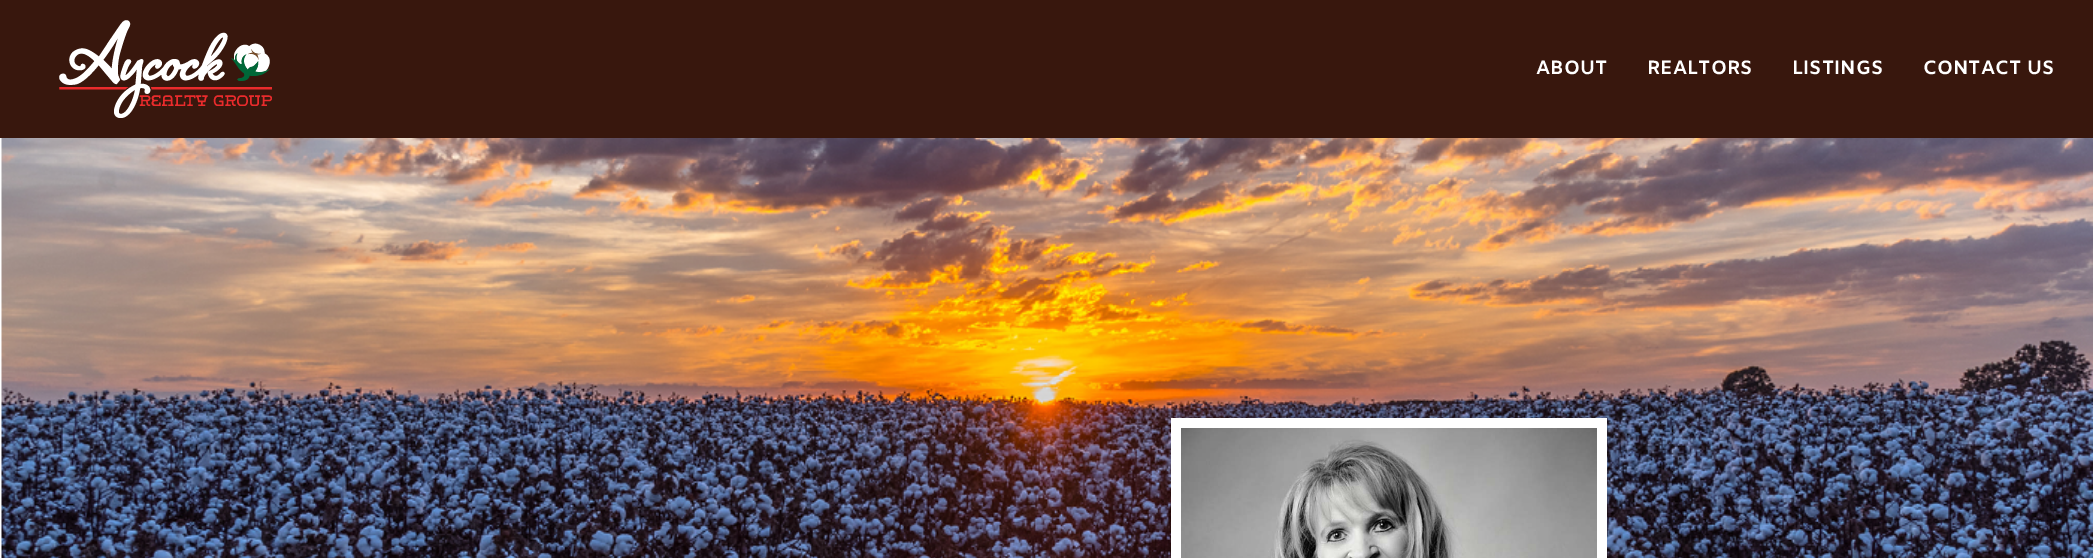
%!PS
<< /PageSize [2093 558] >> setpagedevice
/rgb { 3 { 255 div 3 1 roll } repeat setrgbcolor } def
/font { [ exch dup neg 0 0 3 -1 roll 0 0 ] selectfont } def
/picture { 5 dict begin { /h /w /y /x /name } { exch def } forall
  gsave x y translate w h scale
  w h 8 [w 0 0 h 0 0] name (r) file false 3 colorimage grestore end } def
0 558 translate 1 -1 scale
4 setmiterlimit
255 255 255 rgb
0 0 2093 558 rectfill
56 23 13 rgb
0 0 2093 138 rectfill
(img/1.rgb) 59 20 213 98 picture
(img/2.rgb) 1 138 2092 420 picture
[
  [1181 418 416 10 255 255 255]
  [1597 418 10 140 255 255 255]
  [1171 418 10 140 255 255 255]
] { aload pop rgb rectfill } forall
(img/3.rgb) 1181 428 416 130 picture
/Amiko-Bold 19.25 font
[
  [(ABOUT) 1536 74]
  [(REALTORS) 1647 74]
  [(LISTINGS) 1792 74]
  [(CONTACT US) 1923 74]
] { aload pop moveto show } forall
showpage
